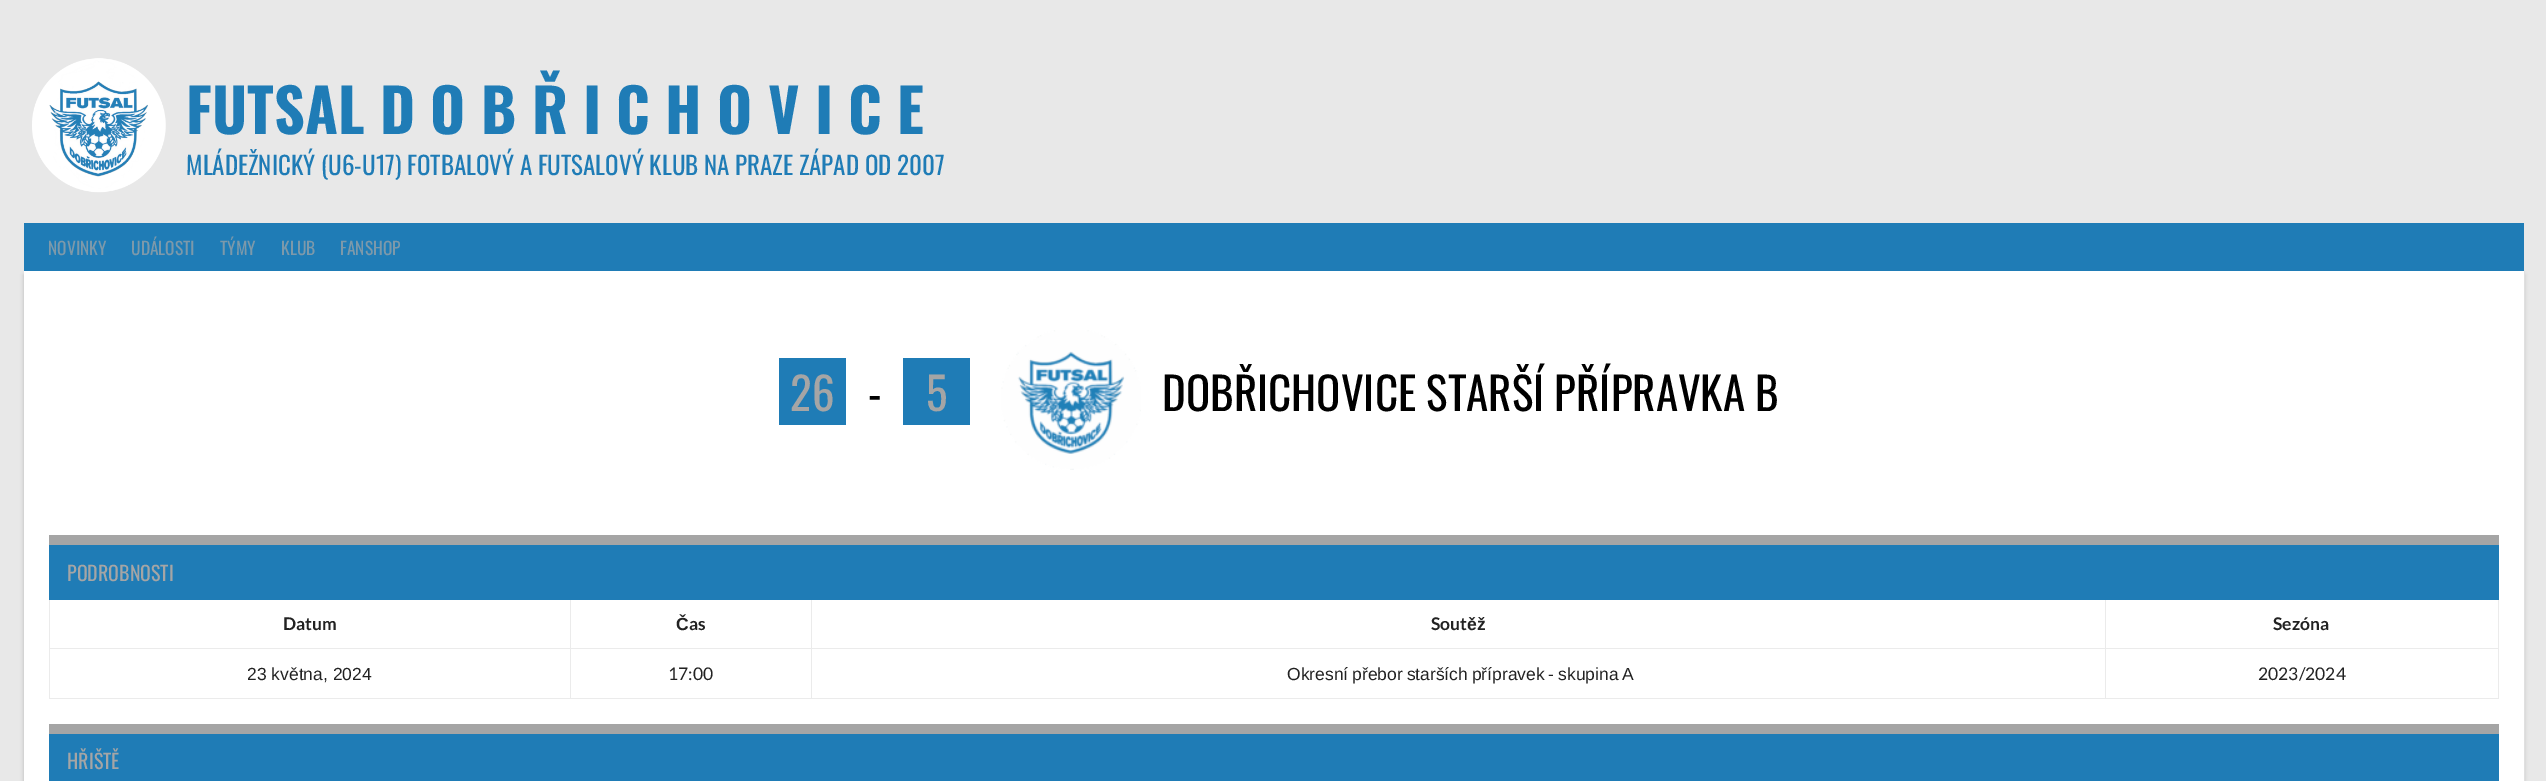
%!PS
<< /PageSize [2546 781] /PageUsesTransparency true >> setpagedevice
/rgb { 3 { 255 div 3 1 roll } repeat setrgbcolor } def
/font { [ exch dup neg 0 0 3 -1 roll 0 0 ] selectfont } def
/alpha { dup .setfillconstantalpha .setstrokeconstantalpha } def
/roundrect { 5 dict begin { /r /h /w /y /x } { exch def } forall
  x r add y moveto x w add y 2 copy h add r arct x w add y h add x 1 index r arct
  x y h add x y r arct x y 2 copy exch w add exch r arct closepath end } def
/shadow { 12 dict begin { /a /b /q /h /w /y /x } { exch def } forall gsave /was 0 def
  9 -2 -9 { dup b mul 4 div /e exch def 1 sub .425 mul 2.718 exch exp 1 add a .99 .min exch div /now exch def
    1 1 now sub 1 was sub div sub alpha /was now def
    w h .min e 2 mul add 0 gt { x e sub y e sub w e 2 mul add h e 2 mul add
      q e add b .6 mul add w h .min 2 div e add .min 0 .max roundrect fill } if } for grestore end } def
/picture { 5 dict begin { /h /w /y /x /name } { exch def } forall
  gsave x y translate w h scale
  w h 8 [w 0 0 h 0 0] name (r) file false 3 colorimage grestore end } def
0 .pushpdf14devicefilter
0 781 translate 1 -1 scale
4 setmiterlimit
232 232 232 rgb
0 0 2546 781 rectfill
(img/1.rgb) 32 58 134 135 picture
0 0 0 rgb
24 275 2500 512 0 2 0.2 shadow
31 124 182 rgb
24 223 2500 48 rectfill
255 255 255 rgb
24 271 2500 510 rectfill
224 224 224 rgb
25 271 moveto 2524 271 lineto 2524 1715 lineto 2525 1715 lineto 2525 271 lineto closepath fill
31 124 182 rgb
779 358 67 67 rectfill
903 358 67 67 rectfill
(img/2.rgb) 1001 330 140 140 picture
[
  [2498 599 1 100 235 235 235]
  [49 698 2450 1 235 235 235]
  [49 599 1 100 235 235 235]
  [2105 648 394 1 235 235 235]
  [2105 648 1 51 235 235 235]
  [811 648 1295 1 235 235 235]
  [811 648 1 51 235 235 235]
  [570 648 243 1 235 235 235]
  [570 648 1 51 235 235 235]
  [49 648 522 1 235 235 235]
  [570 599 1 50 235 235 235]
  [811 599 1 50 235 235 235]
  [2105 599 1 50 235 235 235]
  [49 545 2450 55 31 124 182]
  [49 535 2450 10 165 165 165]
  [49 734 2450 47 31 124 182]
  [49 724 2450 10 165 165 165]
] { aload pop rgb rectfill } forall
/Oswald-Bold 60 font
31 124 182 rgb
186 134 moveto (FUTSAL D O B Ř I C H O V I C E) show
/Oswald-Regular 25 font
186 175 moveto (MLÁDEŽNICKÝ \(U6-U17\) FOTBALOVÝ A FUTSALOVÝ KLUB NA PRAZE ZÁPAD OD 2007) show
/Oswald-Regular 17.5 font
125 153 170 rgb
[
  [(NOVINKY) 48 255]
  [(UDÁLOSTI) 131 255]
  [(TÝMY) 220 255]
  [(KLUB) 281 255]
  [(FANSHOP) 340 255]
] { aload pop moveto show } forall
/Oswald-Regular 45 font
165 165 165 rgb
790 411 moveto (26) show
0 0 0 rgb
868 411 moveto (-) show
165 165 165 rgb
926 411 moveto (5) show
0 0 0 rgb
1162 411 moveto (DOBŘICHOVICE STARŠÍ PŘÍPRAVKA B) show
/Oswald-Regular 20 font
165 165 165 rgb
67 581 moveto (PODROBNOSTI) show
/Lato-Bold 17.5 font
34 34 34 rgb
283 630 moveto (Datum) show
/LiberationSans-Bold 17.5 font
676 630 moveto (Č) show
/Lato-Bold 17.5 font
689 630 moveto (as) show
1431 630 moveto (Sout) show
/LiberationSans-Bold 17.5 font
1467 630 moveto (ěž) show
/Lato-Bold 17.5 font
2273 630 moveto (Sezóna) show
/LiberationSans-Regular 17.5 font
247 680 moveto (23 května, 2024) show
/Lato-Regular 17.5 font
668 680 moveto (17:00) show
/LiberationSans-Regular 17.5 font
1287 680 moveto -1 0 32 (Okresní přebor starších přípravek - skupina A) widthshow
/Lato-Regular 17.5 font
2258 680 moveto (2023/2024) show
/Oswald-Regular 20 font
165 165 165 rgb
67 769 moveto (HŘIŠTĚ) show
.poppdf14devicefilter showpage
